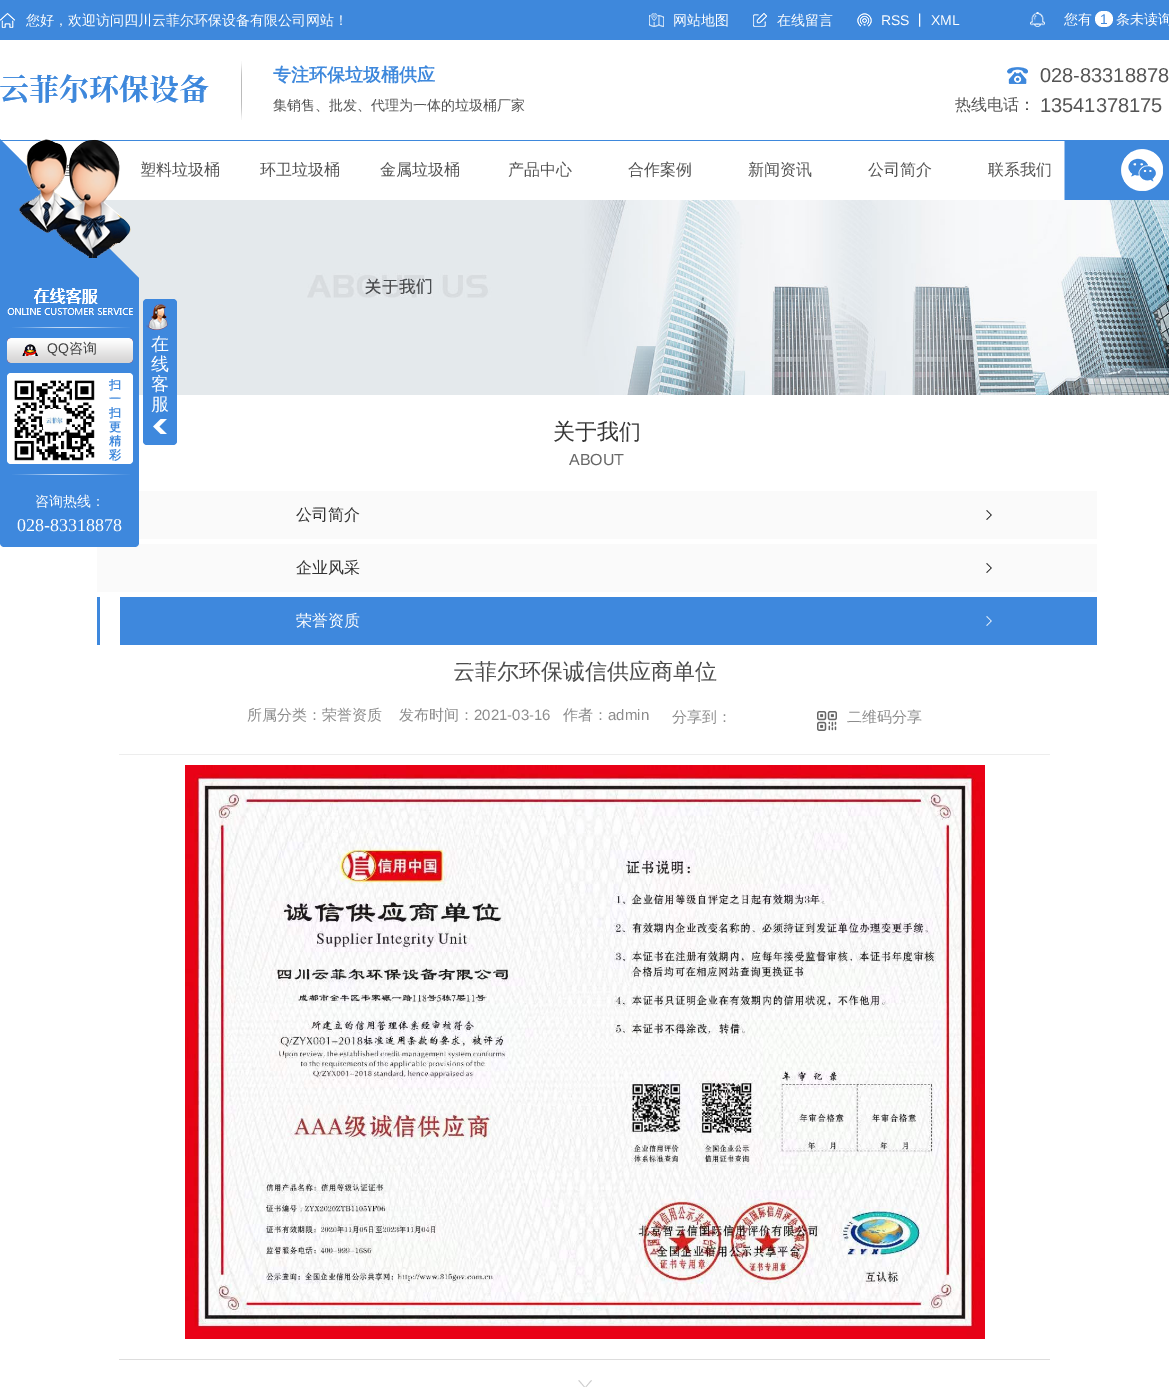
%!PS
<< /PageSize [1169 1387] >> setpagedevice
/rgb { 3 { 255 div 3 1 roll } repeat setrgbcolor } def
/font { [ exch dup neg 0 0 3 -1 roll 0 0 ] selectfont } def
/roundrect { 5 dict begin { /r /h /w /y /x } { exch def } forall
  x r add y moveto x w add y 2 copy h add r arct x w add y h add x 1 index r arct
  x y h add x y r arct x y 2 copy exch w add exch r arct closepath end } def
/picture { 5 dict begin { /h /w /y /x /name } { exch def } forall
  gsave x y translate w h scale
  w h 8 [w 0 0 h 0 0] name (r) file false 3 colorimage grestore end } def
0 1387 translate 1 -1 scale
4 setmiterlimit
255 255 255 rgb
0 0 1169 1387 rectfill
62 136 220 rgb
0 0 1169 40 rectfill
(img/1.rgb) 0 13 15 15 picture
(img/2.rgb) 649 13 15 14 picture
(img/3.rgb) 753 13 14 14 picture
(img/4.rgb) 857 13 15 14 picture
(img/5.rgb) 1030 12 15 15 picture
255 255 255 rgb
1095 11 18 16 8 roundrect fill
(img/6.rgb) 0 74 209 29 picture
(img/7.rgb) 241 61 1 59 picture
(img/8.rgb) 1007 67 21 17 picture
(img/9.rgb) 1 140 1168 60 picture
(img/10.rgb) 1121 149 42 42 picture
(img/11.rgb) 67 200 1102 195 picture
62 136 221 rgb
0 139 moveto 139 278 lineto 0 278 lineto closepath fill
(img/12.rgb) 19 139 112 119 picture
250 250 250 rgb
97 544 1000 48 rectfill
62 136 221 rgb
0 278 moveto 139 278 lineto 139 543 lineto 139 545 137 547 135 547 curveto 4 547 lineto 2 547 0 545 0 543 curveto closepath fill
(img/13.rgb) 7 288 126 27 picture
(img/14.rgb) 12 327 118 1 picture
(img/15.rgb) 7 338 126 25 picture
(img/16.rgb) 22 344 16 12 picture
255 255 255 rgb
7 373 126 91 4 roundrect fill
(img/17.rgb) 14 380 81 81 picture
(img/14.rgb) 12 474 118 1 picture
62 136 221 rgb
143 299 34 146 4 roundrect fill
(img/18.rgb) 153 419 14 15 picture
(img/19.rgb) 146 304 22 26 picture
250 250 250 rgb
139 491 958 48 rectfill
(img/20.rgb) 986 510 6 10 picture
(img/20.rgb) 986 563 6 10 picture
62 136 221 rgb
97 597 1000 48 rectfill
255 255 255 rgb
100 597 20 48 rectfill
(img/21.rgb) 986 616 6 10 picture
(img/22.rgb) 817 711 20 20 picture
237 237 237 rgb
119 754 931 1 rectfill
221 221 221 rgb
119 1359 931 1 rectfill
(img/23.rgb) 185 765 800 574 picture
(img/24.rgb) 578 1380 14 7 picture
/WenQuanYiZenHei-Medium 14 font
255 255 255 rgb
[
  [(您好，欢迎访问四川云菲尔环保设备有限公司网站！) 26 25]
  [(网站地图) 673 25]
  [(在线留言) 777 25]
] { aload pop moveto show } forall
/LiberationSans-Regular 14 font
881 25 moveto (RSS) show
/WenQuanYiZenHei-Medium 14 font
913 25 moveto (丨) show
/LiberationSans-Regular 14 font
931 25 moveto (XML) show
/WenQuanYiZenHei-Medium 14 font
1064 24 moveto (您有) show
/LiberationSans-Regular 14 font
62 136 220 rgb
1100 24 moveto (1) show
/WenQuanYiZenHei-Medium 14 font
255 255 255 rgb
1116 24 moveto (条未读询) show
/WenQuanYiZenHei-Bold 18 font
62 136 220 rgb
273 81 moveto (专注环保垃圾桶供应) show
/WenQuanYiZenHei-Medium 14 font
84 84 84 rgb
273 110 moveto (集销售、批发、代理为一体的垃圾桶厂家) show
/WenQuanYiZenHei-Medium 16 font
955 110 moveto (热线电话：) show
/LiberationSans-Regular 20 font
1040 82 moveto (028-83318878) show
1040 112 moveto (13541378175) show
/WenQuanYiZenHei-Medium 16 font
[
  [(塑料垃圾桶) 140 175]
  [(环卫垃圾桶) 260 175]
  [(金属垃圾桶) 380 175]
  [(产品中心) 508 175]
  [(合作案例) 628 175]
  [(新闻资讯) 748 175]
  [(公司简介) 868 175]
  [(联系我们) 988 175]
] { aload pop moveto show } forall
/LiberationSans-Regular 14 font
64 64 64 rgb
47 353 moveto (QQ) show
/WenQuanYiZenHei-Medium 14 font
69 353 moveto (咨询) show
/WenQuanYiZenHei-Bold 12 font
62 136 220 rgb
[
  [(扫) 109 389]
  [(一) 109 403]
  [(扫) 109 417]
  [(更) 109 431]
  [(精) 109 445]
  [(彩) 109 459]
] { aload pop moveto show } forall
/WenQuanYiZenHei-Medium 14 font
255 255 255 rgb
35 506 moveto (咨询热线：) show
/LiberationSerif-Regular 18 font
17 531 moveto (028-83318878) show
/WenQuanYiZenHei-Medium 18 font
[
  [(在) 151 350]
  [(线) 151 370]
  [(客) 151 390]
  [(服) 151 410]
] { aload pop moveto show } forall
/WenQuanYiZenHei-Medium 22 font
51 51 51 rgb
553 439 moveto (关于我们) show
/LiberationSans-Regular 16 font
102 102 102 rgb
569 465 moveto (ABOUT) show
/WenQuanYiZenHei-Medium 16 font
51 51 51 rgb
296 520 moveto (公司简介) show
296 573 moveto (企业风采) show
255 255 255 rgb
296 626 moveto (荣誉资质) show
/WenQuanYiZenHei-Medium 22 font
76 76 76 rgb
453 679 moveto (云菲尔环保诚信供应商单位) show
/WenQuanYiZenHei-Medium 15 font
140 140 140 rgb
247 720 moveto (所属分类：荣誉资质) show
399 720 moveto (发布时间：) show
/LiberationSans-Regular 15 font
474 720 moveto (2021-03-16) show
/WenQuanYiZenHei-Medium 15 font
563 720 moveto (作者：) show
/LiberationSans-Regular 15 font
608 720 moveto (admin) show
/WenQuanYiZenHei-Medium 15 font
672 722 moveto (分享到：) show
847 722 moveto (二维码分享) show
showpage
